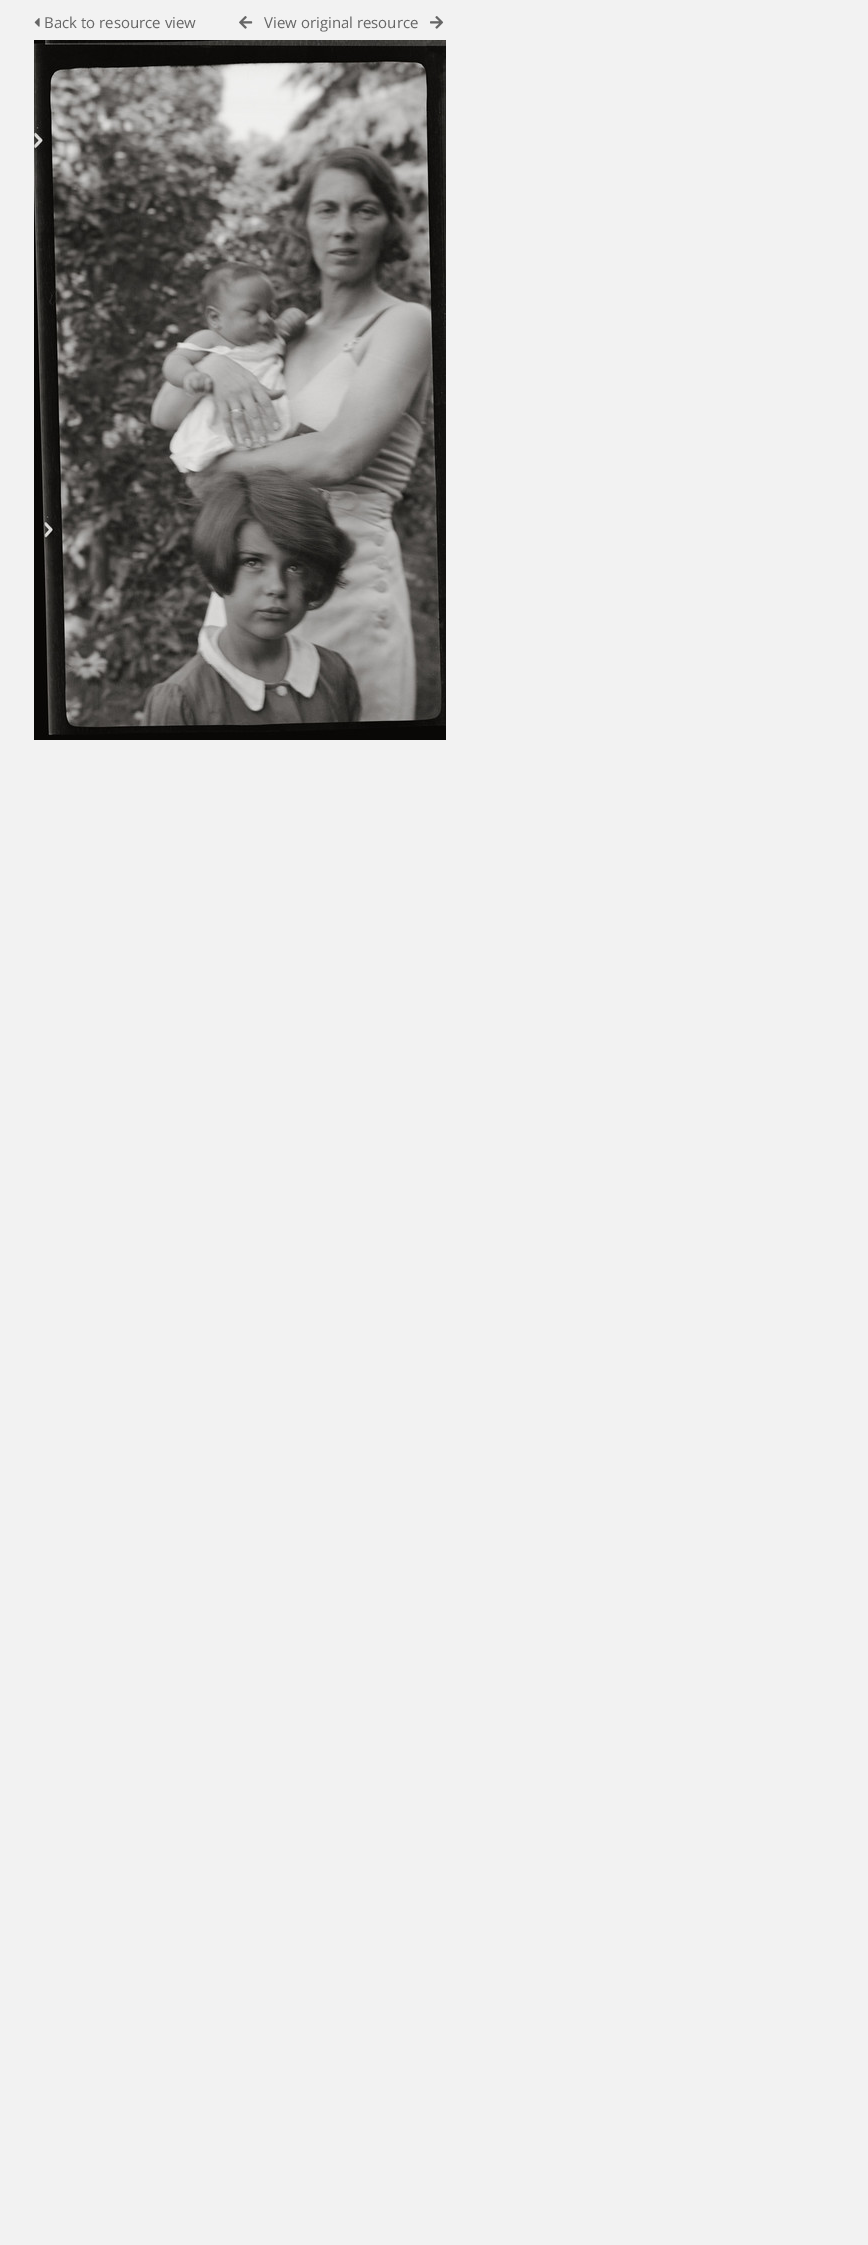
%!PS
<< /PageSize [868 2245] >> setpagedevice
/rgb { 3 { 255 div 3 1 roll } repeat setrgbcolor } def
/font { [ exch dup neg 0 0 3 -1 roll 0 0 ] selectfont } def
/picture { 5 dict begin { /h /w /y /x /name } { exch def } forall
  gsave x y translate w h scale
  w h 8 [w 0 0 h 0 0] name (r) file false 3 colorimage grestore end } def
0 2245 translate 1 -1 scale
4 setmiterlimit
242 242 242 rgb
0 0 868 2245 rectfill
(img/1.rgb) 34 18 6 9 picture
(img/2.rgb) 239 16 14 13 picture
(img/3.rgb) 430 16 14 13 picture
(img/4.rgb) 34 40 412 700 picture
/OpenSans-Regular 15 font
102 102 102 rgb
44 28 moveto (Back to resource view) show
264 28 moveto (View original resource) show
showpage
